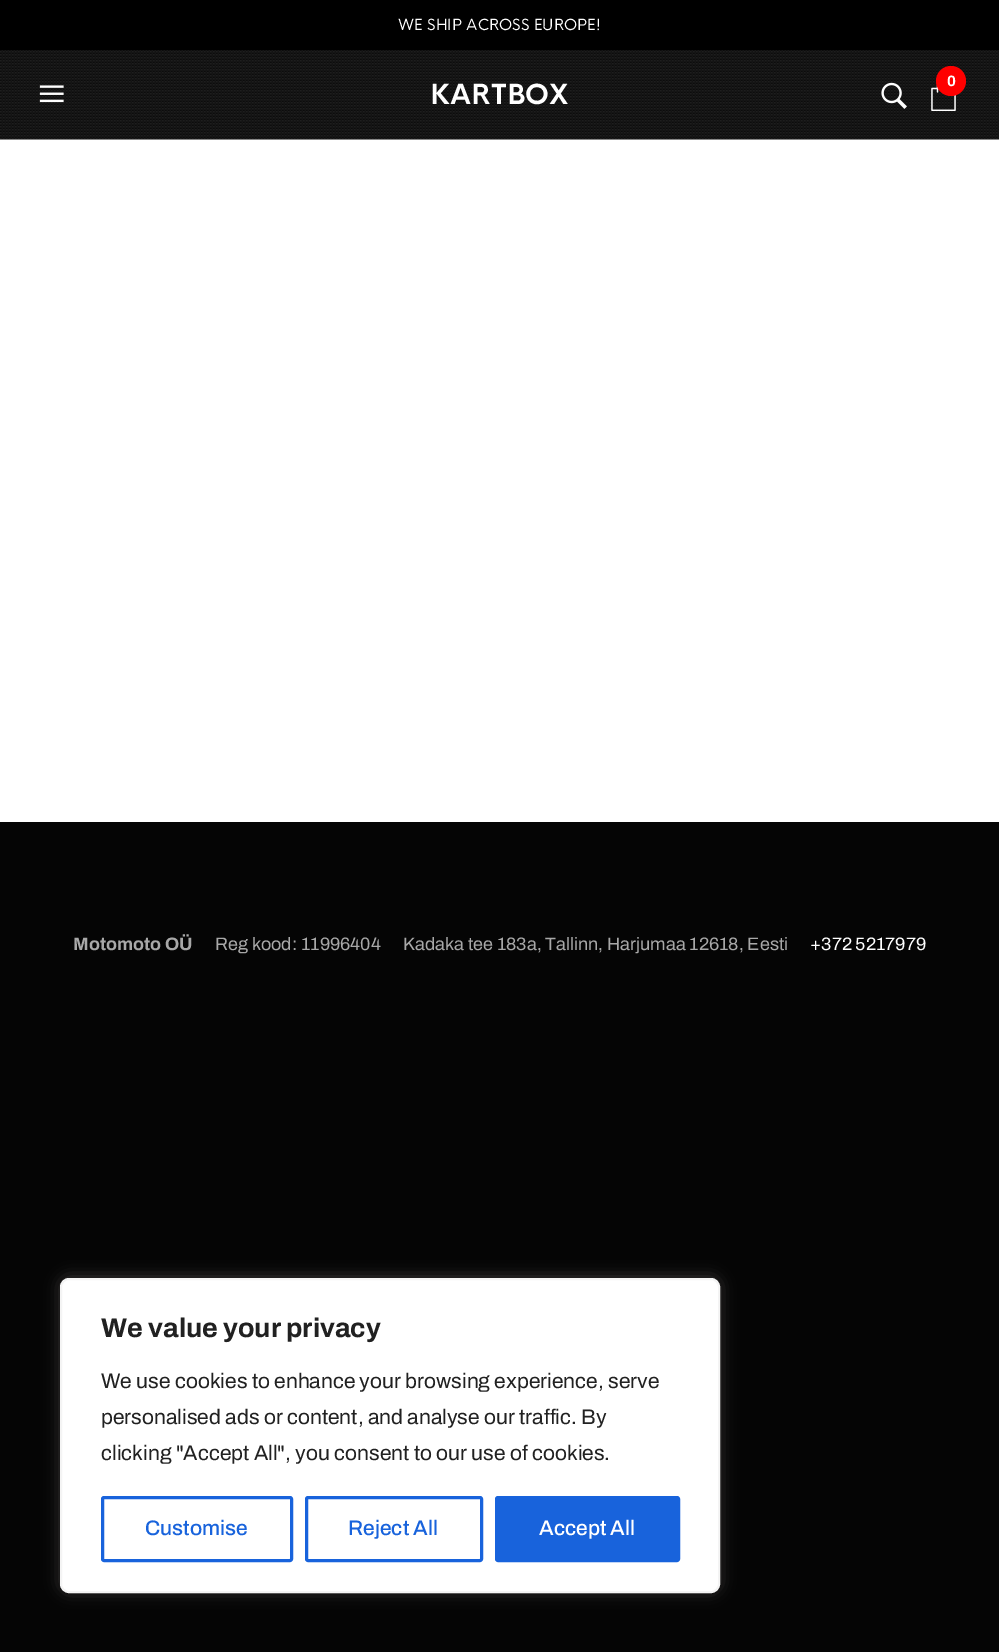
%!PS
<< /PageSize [999 1652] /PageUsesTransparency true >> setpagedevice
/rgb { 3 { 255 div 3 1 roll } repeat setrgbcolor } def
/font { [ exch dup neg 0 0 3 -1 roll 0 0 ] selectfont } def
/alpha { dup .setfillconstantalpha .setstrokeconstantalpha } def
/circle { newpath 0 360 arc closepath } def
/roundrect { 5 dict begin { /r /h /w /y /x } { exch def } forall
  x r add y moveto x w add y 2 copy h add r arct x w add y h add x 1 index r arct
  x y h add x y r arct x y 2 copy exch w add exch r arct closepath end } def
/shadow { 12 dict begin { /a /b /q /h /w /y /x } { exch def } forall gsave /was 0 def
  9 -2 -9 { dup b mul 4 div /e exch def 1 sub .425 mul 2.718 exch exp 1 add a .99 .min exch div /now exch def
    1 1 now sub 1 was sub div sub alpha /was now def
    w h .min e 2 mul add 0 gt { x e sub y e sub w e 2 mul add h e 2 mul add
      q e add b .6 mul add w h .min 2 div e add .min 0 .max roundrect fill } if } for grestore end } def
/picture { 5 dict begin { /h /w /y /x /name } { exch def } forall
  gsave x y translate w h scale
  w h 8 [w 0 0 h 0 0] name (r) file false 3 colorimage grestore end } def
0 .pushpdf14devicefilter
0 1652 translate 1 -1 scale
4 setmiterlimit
5 5 5 rgb
0 0 999 1652 rectfill
255 255 255 rgb
0 139 999 683 rectfill
(img/1.rgb) 0 50 999 90 picture
0 0 0 rgb
0 0 999 50 rectfill
(img/2.rgb) 881 82 26 27 picture
(img/3.rgb) 931 84 25 27 picture
255 0 0 rgb
951 81 15 circle fill
(img/4.rgb) 39 85 25 18 picture
172 171 171 rgb
60 1277 660 315 9 7.5 0.3 shadow
255 255 255 rgb
61 1279 658 313 8 roundrect gsave fill grestore
244 244 244 rgb
2 setlinewidth
stroke
24 99 220 rgb
3 setlinewidth
102.5 1497.5 189 63 1.5 roundrect stroke
306.5 1497.5 175 63 1.5 roundrect stroke
496.5 1497.5 182 63 1.5 roundrect gsave fill grestore
stroke
/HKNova-Regular 15 font
255 255 255 rgb
398 30 moveto (WE SHIP ACROSS EUROPE!) show
/Archivo-Bold 15 font
947 86 moveto (0) show
/HKNova-Bold 27 font
430 104 moveto (KARTBOX) show
/Archivo-Bold 18 font
168 168 168 rgb
73 950 moveto (Motomoto OÜ) show
/Archivo-Regular 18 font
215 950 moveto (Reg kood: 11996404      Kadaka tee 183a, Tallinn, Harjumaa 12618, Eesti) show
255 255 255 rgb
810 950 moveto (+372 5217979) show
/Archivo-Bold 27 font
33 33 33 rgb
101 1337 moveto (We value your privacy) show
/Archivo-Regular 21 font
[
  [(We use cookies to enhance your browsing experience, serve) 101 1388]
  [(personalised ads or content, and analyse our traffic. By) 101 1424]
  [(clicking "Accept All", you consent to our use of cookies.) 101 1460]
] { aload pop moveto show } forall
/Archivo-Medium 21 font
24 99 220 rgb
145 1535 moveto (Customise) show
348 1535 moveto (Reject All) show
255 255 255 rgb
539 1535 moveto (Accept All) show
.poppdf14devicefilter showpage
